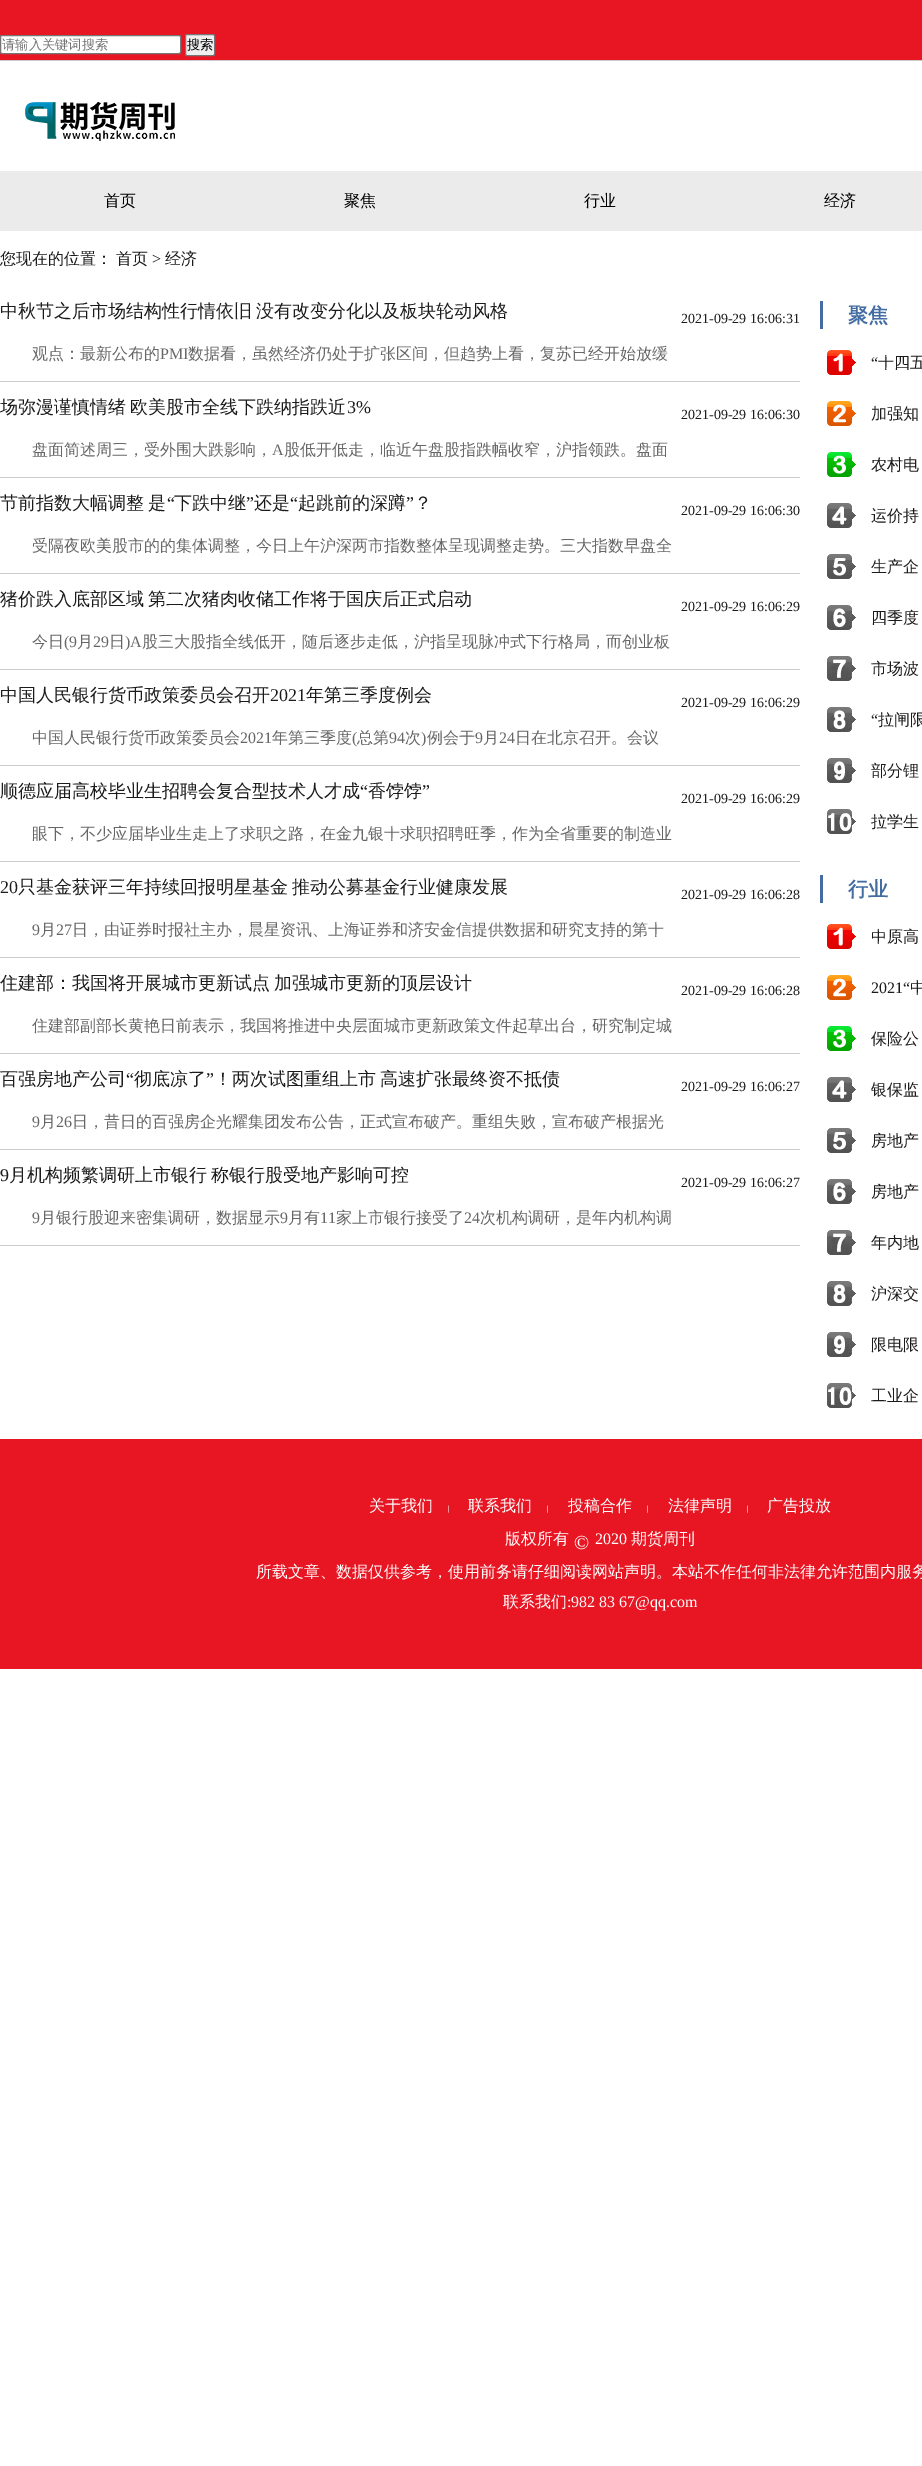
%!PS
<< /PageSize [922 2466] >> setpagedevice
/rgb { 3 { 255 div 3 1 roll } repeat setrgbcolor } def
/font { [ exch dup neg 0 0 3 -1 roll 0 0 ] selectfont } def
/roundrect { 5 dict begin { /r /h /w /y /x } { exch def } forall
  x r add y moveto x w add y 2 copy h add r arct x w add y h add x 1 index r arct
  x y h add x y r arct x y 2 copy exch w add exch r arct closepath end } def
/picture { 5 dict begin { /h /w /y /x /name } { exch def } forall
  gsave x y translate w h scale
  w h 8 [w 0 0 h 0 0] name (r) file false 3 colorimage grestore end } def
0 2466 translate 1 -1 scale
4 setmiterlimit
255 255 255 rgb
0 0 922 2466 rectfill
231 22 34 rgb
0 0 922 60 rectfill
204 204 204 rgb
0 60 922 1 rectfill
255 255 255 rgb
0.5 35.5 180 18 1.5 roundrect gsave fill grestore
118 118 118 rgb
stroke
239 239 239 rgb
185.5 34.5 29 21 1.5 roundrect gsave fill grestore
118 118 118 rgb
stroke
(img/1.rgb) 25 102 150 39 picture
[
  [0 171 922 60 235 235 235]
  [0 381 800 1 204 204 204]
  [0 477 800 1 204 204 204]
  [0 573 800 1 204 204 204]
  [0 669 800 1 204 204 204]
  [0 765 800 1 204 204 204]
  [0 861 800 1 204 204 204]
  [0 957 800 1 204 204 204]
  [0 1053 800 1 204 204 204]
  [0 1149 800 1 204 204 204]
  [0 1245 800 1 204 204 204]
  [820 301 3 28 67 109 162]
] { aload pop rgb rectfill } forall
(img/2.rgb) 827 350 29 25 picture
(img/3.rgb) 827 401 29 25 picture
(img/4.rgb) 827 452 29 25 picture
(img/5.rgb) 827 503 29 25 picture
(img/6.rgb) 827 554 29 25 picture
(img/7.rgb) 827 605 29 25 picture
(img/8.rgb) 827 656 29 25 picture
(img/9.rgb) 827 707 29 25 picture
(img/10.rgb) 827 758 29 25 picture
(img/11.rgb) 827 809 29 25 picture
820 875 3 28 rectfill
(img/2.rgb) 827 924 29 25 picture
(img/3.rgb) 827 975 29 25 picture
(img/4.rgb) 827 1026 29 25 picture
(img/5.rgb) 827 1077 29 25 picture
(img/6.rgb) 827 1128 29 25 picture
(img/7.rgb) 827 1179 29 25 picture
(img/8.rgb) 827 1230 29 25 picture
(img/9.rgb) 827 1281 29 25 picture
(img/10.rgb) 827 1332 29 25 picture
(img/11.rgb) 827 1383 29 25 picture
231 22 34 rgb
0 1439 922 230 rectfill
/WenQuanYiZenHei-Medium 13.25 font
117 117 117 rgb
2 49 moveto (请输入关键词搜索) show
0 0 0 rgb
187 49 moveto (搜索) show
/WenQuanYiZenHei-Medium 16 font
[
  [(首页) 104 206]
  [(聚焦) 344 206]
  [(行业) 584 206]
  [(经济) 824 206]
] { aload pop moveto show } forall
27 27 27 rgb
0 264 moveto (您现在的位置：) show
116 264 moveto (首页) show
/LiberationSerif-Regular 16 font
152 264 moveto (>) show
/WenQuanYiZenHei-Medium 16 font
165 264 moveto (经济) show
/WenQuanYiZenHei-Medium 18 font
0 317 moveto -1 0 32 (中秋节之后市场结构性行情依旧 没有改变分化以及板块轮动风格) widthshow
/LiberationSerif-Regular 14 font
681 323 moveto (2021-09-29 16:06:31) show
/WenQuanYiZenHei-Medium 16 font
102 102 102 rgb
32 359 moveto (观点：最新公布的) show
/LiberationSerif-Regular 16 font
160 359 moveto (PMI) show
/WenQuanYiZenHei-Medium 16 font
188 359 moveto (数据看，虽然经济仍处于扩张区间，但趋势上看，复苏已经开始放缓) show
/WenQuanYiZenHei-Medium 18 font
27 27 27 rgb
0 413 moveto -1 0 32 (场弥漫谨慎情绪 欧美股市全线下跌纳指跌近) widthshow
/LiberationSerif-Regular 18 font
347 413 moveto (3%) show
/LiberationSerif-Regular 14 font
681 419 moveto (2021-09-29 16:06:30) show
/WenQuanYiZenHei-Medium 16 font
102 102 102 rgb
32 455 moveto (盘面简述周三，受外围大跌影响，) show
/LiberationSerif-Regular 16 font
272 455 moveto (A) show
/WenQuanYiZenHei-Medium 16 font
284 455 moveto (股低开低走，临近午盘股指跌幅收窄，沪指领跌。盘面) show
/WenQuanYiZenHei-Medium 18 font
27 27 27 rgb
0 509 moveto -1 0 32 (节前指数大幅调整 是) widthshow
/LiberationSerif-Regular 18 font
167 509 moveto (“) show
/WenQuanYiZenHei-Medium 18 font
174 509 moveto (下跌中继) show
/LiberationSerif-Regular 18 font
246 509 moveto (”) show
/WenQuanYiZenHei-Medium 18 font
254 509 moveto (还是) show
/LiberationSerif-Regular 18 font
290 509 moveto (“) show
/WenQuanYiZenHei-Medium 18 font
298 509 moveto (起跳前的深蹲) show
/LiberationSerif-Regular 18 font
406 509 moveto (”) show
/WenQuanYiZenHei-Medium 18 font
414 509 moveto (？) show
/LiberationSerif-Regular 14 font
681 515 moveto (2021-09-29 16:06:30) show
/WenQuanYiZenHei-Medium 16 font
102 102 102 rgb
32 551 moveto (受隔夜欧美股市的的集体调整，今日上午沪深两市指数整体呈现调整走势。三大指数早盘全) show
/WenQuanYiZenHei-Medium 18 font
27 27 27 rgb
0 605 moveto -1 0 32 (猪价跌入底部区域 第二次猪肉收储工作将于国庆后正式启动) widthshow
/LiberationSerif-Regular 14 font
681 611 moveto (2021-09-29 16:06:29) show
/WenQuanYiZenHei-Medium 16 font
102 102 102 rgb
32 647 moveto (今日) show
/LiberationSerif-Regular 16 font
64 647 moveto (\(9) show
/WenQuanYiZenHei-Medium 16 font
77 647 moveto (月) show
/LiberationSerif-Regular 16 font
93 647 moveto (29) show
/WenQuanYiZenHei-Medium 16 font
109 647 moveto (日) show
/LiberationSerif-Regular 16 font
125 647 moveto (\)A) show
/WenQuanYiZenHei-Medium 16 font
142 647 moveto (股三大股指全线低开，随后逐步走低，沪指呈现脉冲式下行格局，而创业板) show
/WenQuanYiZenHei-Medium 18 font
27 27 27 rgb
0 701 moveto (中国人民银行货币政策委员会召开) show
/LiberationSerif-Regular 18 font
270 701 moveto (2021) show
/WenQuanYiZenHei-Medium 18 font
306 701 moveto (年第三季度例会) show
/LiberationSerif-Regular 14 font
681 707 moveto (2021-09-29 16:06:29) show
/WenQuanYiZenHei-Medium 16 font
102 102 102 rgb
32 743 moveto (中国人民银行货币政策委员会) show
/LiberationSerif-Regular 16 font
240 743 moveto (2021) show
/WenQuanYiZenHei-Medium 16 font
272 743 moveto (年第三季度) show
/LiberationSerif-Regular 16 font
352 743 moveto (\() show
/WenQuanYiZenHei-Medium 16 font
357 743 moveto (总第) show
/LiberationSerif-Regular 16 font
389 743 moveto (94) show
/WenQuanYiZenHei-Medium 16 font
405 743 moveto (次) show
/LiberationSerif-Regular 16 font
421 743 moveto (\)) show
/WenQuanYiZenHei-Medium 16 font
427 743 moveto (例会于) show
/LiberationSerif-Regular 16 font
475 743 moveto (9) show
/WenQuanYiZenHei-Medium 16 font
483 743 moveto (月) show
/LiberationSerif-Regular 16 font
499 743 moveto (24) show
/WenQuanYiZenHei-Medium 16 font
515 743 moveto (日在北京召开。会议) show
/WenQuanYiZenHei-Medium 18 font
27 27 27 rgb
0 797 moveto (顺德应届高校毕业生招聘会复合型技术人才成) show
/LiberationSerif-Regular 18 font
360 797 moveto (“) show
/WenQuanYiZenHei-Medium 18 font
368 797 moveto (香饽饽) show
/LiberationSerif-Regular 18 font
422 797 moveto (”) show
/LiberationSerif-Regular 14 font
681 803 moveto (2021-09-29 16:06:29) show
/WenQuanYiZenHei-Medium 16 font
102 102 102 rgb
32 839 moveto (眼下，不少应届毕业生走上了求职之路，在金九银十求职招聘旺季，作为全省重要的制造业) show
/LiberationSerif-Regular 18 font
27 27 27 rgb
0 893 moveto (20) show
/WenQuanYiZenHei-Medium 18 font
18 893 moveto -1 0 32 (只基金获评三年持续回报明星基金 推动公募基金行业健康发展) widthshow
/LiberationSerif-Regular 14 font
681 899 moveto (2021-09-29 16:06:28) show
/LiberationSerif-Regular 16 font
102 102 102 rgb
32 935 moveto (9) show
/WenQuanYiZenHei-Medium 16 font
40 935 moveto (月) show
/LiberationSerif-Regular 16 font
56 935 moveto (27) show
/WenQuanYiZenHei-Medium 16 font
72 935 moveto (日，由证券时报社主办，晨星资讯、上海证券和济安金信提供数据和研究支持的第十) show
/WenQuanYiZenHei-Medium 18 font
27 27 27 rgb
0 989 moveto -1 0 32 (住建部：我国将开展城市更新试点 加强城市更新的顶层设计) widthshow
/LiberationSerif-Regular 14 font
681 995 moveto (2021-09-29 16:06:28) show
/WenQuanYiZenHei-Medium 16 font
102 102 102 rgb
32 1031 moveto (住建部副部长黄艳日前表示，我国将推进中央层面城市更新政策文件起草出台，研究制定城) show
/WenQuanYiZenHei-Medium 18 font
27 27 27 rgb
0 1085 moveto (百强房地产公司) show
/LiberationSerif-Regular 18 font
126 1085 moveto (“) show
/WenQuanYiZenHei-Medium 18 font
134 1085 moveto (彻底凉了) show
/LiberationSerif-Regular 18 font
206 1085 moveto (”) show
/WenQuanYiZenHei-Medium 18 font
214 1085 moveto -1 0 32 (！两次试图重组上市 高速扩张最终资不抵债) widthshow
/LiberationSerif-Regular 14 font
681 1091 moveto (2021-09-29 16:06:27) show
/LiberationSerif-Regular 16 font
102 102 102 rgb
32 1127 moveto (9) show
/WenQuanYiZenHei-Medium 16 font
40 1127 moveto (月) show
/LiberationSerif-Regular 16 font
56 1127 moveto (26) show
/WenQuanYiZenHei-Medium 16 font
72 1127 moveto (日，昔日的百强房企光耀集团发布公告，正式宣布破产。重组失败，宣布破产根据光) show
/LiberationSerif-Regular 18 font
27 27 27 rgb
0 1181 moveto (9) show
/WenQuanYiZenHei-Medium 18 font
9 1181 moveto -1 0 32 (月机构频繁调研上市银行 称银行股受地产影响可控) widthshow
/LiberationSerif-Regular 14 font
681 1187 moveto (2021-09-29 16:06:27) show
/LiberationSerif-Regular 16 font
102 102 102 rgb
32 1223 moveto (9) show
/WenQuanYiZenHei-Medium 16 font
40 1223 moveto (月银行股迎来密集调研，数据显示) show
/LiberationSerif-Regular 16 font
280 1223 moveto (9) show
/WenQuanYiZenHei-Medium 16 font
288 1223 moveto (月有) show
/LiberationSerif-Regular 16 font
320 1223 moveto (11) show
/WenQuanYiZenHei-Medium 16 font
336 1223 moveto (家上市银行接受了) show
/LiberationSerif-Regular 16 font
464 1223 moveto (24) show
/WenQuanYiZenHei-Medium 16 font
480 1223 moveto (次机构调研，是年内机构调) show
/WenQuanYiZenHei-Bold 20 font
67 109 162 rgb
848 322 moveto (聚焦) show
/LiberationSerif-Regular 16 font
27 27 27 rgb
871 368 moveto (“) show
/WenQuanYiZenHei-Medium 16 font
878 368 moveto (十四五) show
871 419 moveto -1 0 32 (加强知) widthshow
871 470 moveto -1 0 32 (农村电) widthshow
871 521 moveto -1 0 32 (运价持) widthshow
871 572 moveto -1 0 32 (生产企) widthshow
871 623 moveto -1 0 32 (四季度) widthshow
871 674 moveto -1 0 32 (市场波) widthshow
/LiberationSerif-Regular 16 font
871 725 moveto (“) show
/WenQuanYiZenHei-Medium 16 font
[
  [(拉闸限) 878 725]
  [(部分锂) 871 776]
  [(拉学生) 871 827]
] { aload pop moveto show } forall
/WenQuanYiZenHei-Bold 20 font
67 109 162 rgb
848 896 moveto (行业) show
/WenQuanYiZenHei-Medium 16 font
27 27 27 rgb
871 942 moveto -1 0 32 (中原高) widthshow
/LiberationSerif-Regular 16 font
871 993 moveto (2021“) show
/WenQuanYiZenHei-Medium 16 font
910 993 moveto (中) show
871 1044 moveto -1 0 32 (保险公) widthshow
871 1095 moveto (银保监) show
871 1146 moveto -1 0 32 (房地产) widthshow
871 1197 moveto -1 0 32 (房地产) widthshow
871 1248 moveto (年内地) show
871 1299 moveto -1 0 32 (沪深交) widthshow
871 1350 moveto -1 0 32 (限电限) widthshow
871 1401 moveto -1 0 32 (工业企) widthshow
255 255 255 rgb
369 1511 moveto (关于我们) show
/LiberationSerif-Regular 8 font
448 1511 moveto (|) show
/WenQuanYiZenHei-Medium 16 font
468 1511 moveto (联系我们) show
/LiberationSerif-Regular 8 font
547 1511 moveto (|) show
/WenQuanYiZenHei-Medium 16 font
568 1511 moveto (投稿合作) show
/LiberationSerif-Regular 8 font
647 1511 moveto (|) show
/WenQuanYiZenHei-Medium 16 font
668 1511 moveto (法律声明) show
/LiberationSerif-Regular 8 font
747 1511 moveto (|) show
/WenQuanYiZenHei-Medium 16 font
767 1511 moveto (广告投放) show
505 1544 moveto (版权所有) show
/LiberationSerif-Regular 20 font
574 1549 moveto (©) show
/LiberationSerif-Regular 16 font
595 1544 moveto (2020) show
/WenQuanYiZenHei-Medium 16 font
[
  [(期货周刊) 631 1544]
  [(所载文章、数据仅供参考，使用前务请仔细阅读网站声明。本站不作任何非法律允许范围内服务) 256 1577]
  [(联系我们) 503 1607]
] { aload pop moveto show } forall
/LiberationSerif-Regular 16 font
567 1607 moveto (:982 83 67@qq.com) show
showpage
